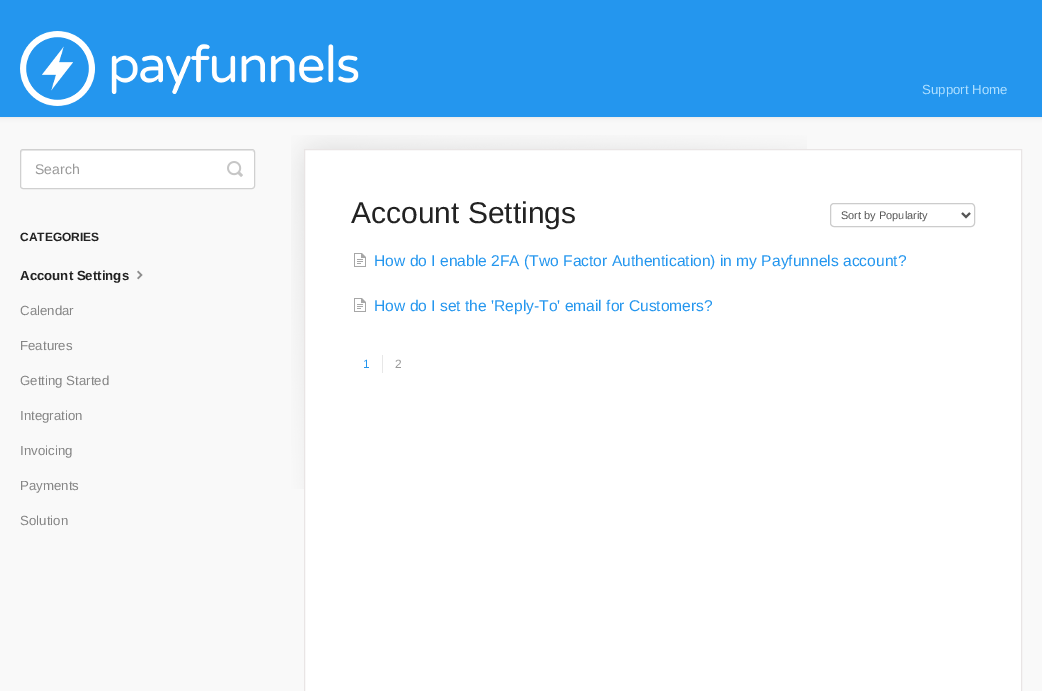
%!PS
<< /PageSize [1042 691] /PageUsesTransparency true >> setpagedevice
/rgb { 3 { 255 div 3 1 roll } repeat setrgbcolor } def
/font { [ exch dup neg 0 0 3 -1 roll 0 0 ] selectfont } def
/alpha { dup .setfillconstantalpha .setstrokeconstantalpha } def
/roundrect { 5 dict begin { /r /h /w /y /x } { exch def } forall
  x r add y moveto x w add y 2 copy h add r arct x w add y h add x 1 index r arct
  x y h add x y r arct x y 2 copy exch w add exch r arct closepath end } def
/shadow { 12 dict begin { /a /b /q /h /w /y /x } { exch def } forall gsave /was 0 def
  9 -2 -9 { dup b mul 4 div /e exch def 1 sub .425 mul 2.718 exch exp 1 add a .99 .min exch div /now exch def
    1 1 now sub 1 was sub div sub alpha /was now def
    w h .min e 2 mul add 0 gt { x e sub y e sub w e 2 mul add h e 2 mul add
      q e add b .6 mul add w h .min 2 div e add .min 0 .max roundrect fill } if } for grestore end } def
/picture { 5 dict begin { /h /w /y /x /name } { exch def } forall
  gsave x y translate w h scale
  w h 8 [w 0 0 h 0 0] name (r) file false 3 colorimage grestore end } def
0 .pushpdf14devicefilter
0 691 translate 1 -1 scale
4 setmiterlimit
249 249 249 rgb
0 0 1042 691 rectfill
0 0 0 rgb
0 1 1042 117 0 2 0.07 shadow
36 150 238 rgb
0 0 1042 117 rectfill
(img/1.rgb) 20 31 339 75 picture
255 255 255 rgb
20 149 235 40 3 roundrect fill
236 236 236 rgb
23 151 moveto 252 151 lineto 253 151 254 152 254 153 curveto 254 151 lineto 252 150 lineto 23 150 lineto 21 150 21 152 21 153 curveto 21 152 22 151 23 151 curveto closepath fill
208 208 208 rgb
20.5 149.5 234 39 2.5 roundrect stroke
(img/2.rgb) 227 161 16 16 picture
(img/3.rgb) 137 270 6 10 picture
(img/4.rgb) 291 135 516 354 picture
255 255 255 rgb
304.5 149.5 moveto 1021.5 149.5 lineto 1021.5 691.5 lineto 304.5 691.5 lineto closepath gsave fill grestore
233 229 229 rgb
stroke
204 204 204 rgb
830.5 203.5 144 23 3.5 roundrect stroke
85 85 85 rgb
2 setlinewidth
962 213 moveto 966 217 lineto 970 213 lineto stroke
(img/5.rgb) 354 253 12 14 picture
(img/5.rgb) 354 298 12 14 picture
231 231 231 rgb
382 355 1 18 rectfill
/LiberationSans-Regular 13.25 font
174 223 255 rgb
922 94 moveto (Support Home) show
/LiberationSans-Regular 14 font
153 153 153 rgb
35 174 moveto (Search) show
/LiberationSans-Bold 12 font
34 34 34 rgb
20 241 moveto (CATEGORIES) show
/LiberationSans-Bold 13.25 font
20 280 moveto (Account Settings) show
/LiberationSans-Regular 13.25 font
133 133 133 rgb
[
  [(Calendar) 20 315]
  [(Features) 20 350]
  [(Getting Started) 20 385]
  [(Integration) 20 420]
  [(Invoicing) 20 455]
  [(Payments) 20 490]
  [(Solution) 20 525]
] { aload pop moveto show } forall
/LiberationSans-Regular 30 font
34 34 34 rgb
351 223 moveto (Account Settings) show
/LiberationSans-Regular 11 font
85 85 85 rgb
841 219 moveto (Sort by Popularity) show
/LiberationSans-Regular 15.6 font
36 150 238 rgb
374 266 moveto (How do I enable 2FA \(Two Factor Authentication\) in my Payfunnels account?) show
374 311 moveto (How do I set the 'Reply-To' email for Customers?) show
/LiberationSans-Regular 12 font
363 368 moveto (1) show
153 153 153 rgb
395 368 moveto (2) show
.poppdf14devicefilter showpage
